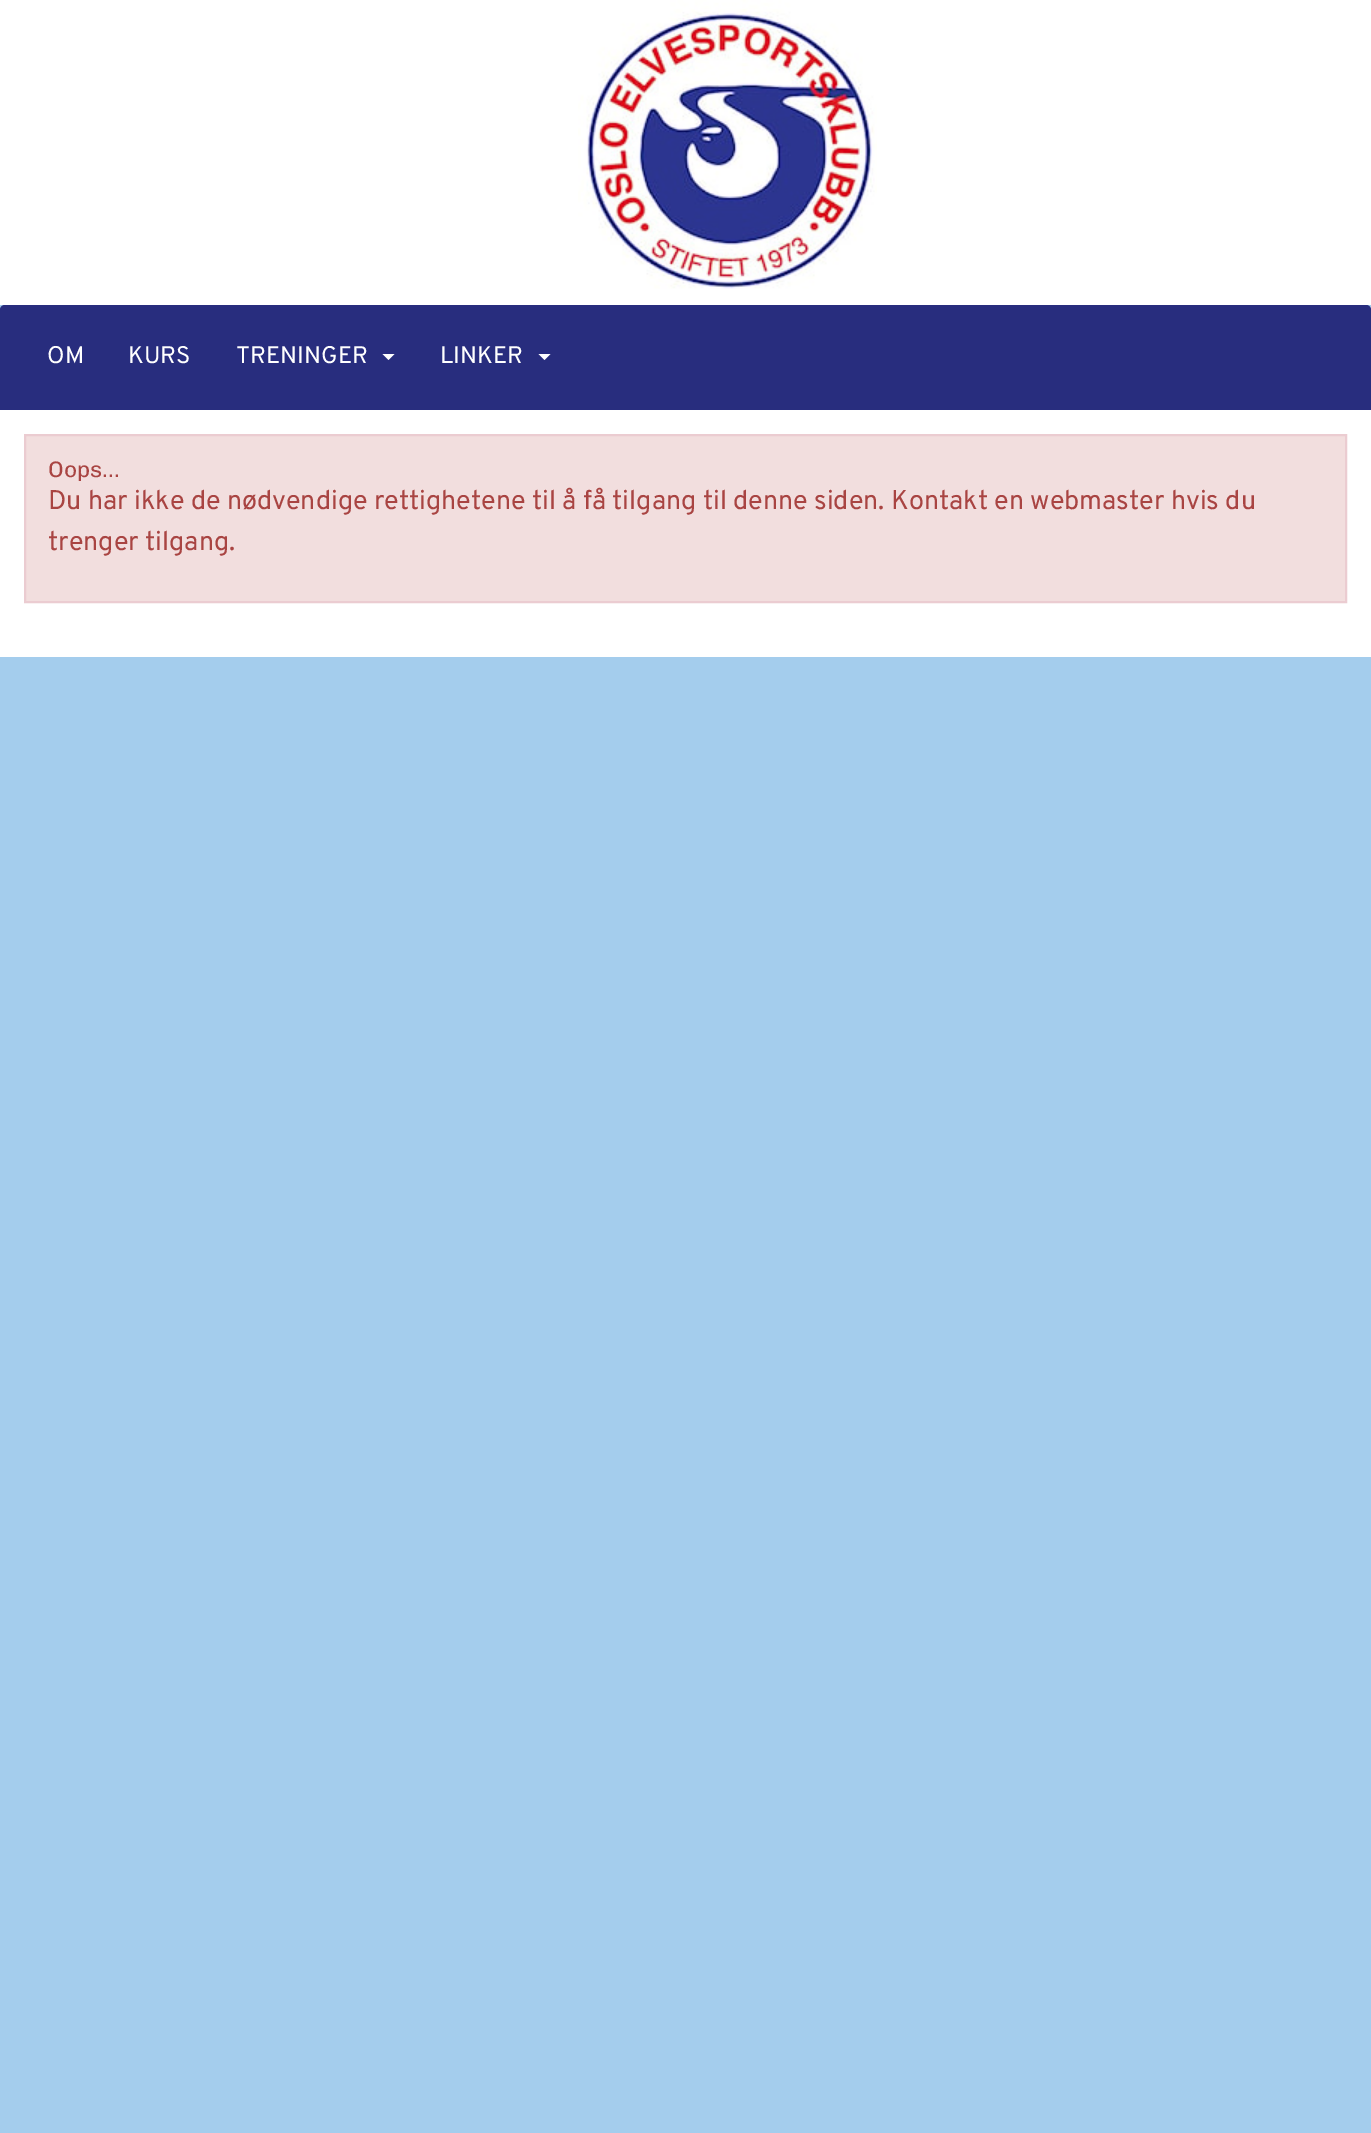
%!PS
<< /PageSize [1371 2133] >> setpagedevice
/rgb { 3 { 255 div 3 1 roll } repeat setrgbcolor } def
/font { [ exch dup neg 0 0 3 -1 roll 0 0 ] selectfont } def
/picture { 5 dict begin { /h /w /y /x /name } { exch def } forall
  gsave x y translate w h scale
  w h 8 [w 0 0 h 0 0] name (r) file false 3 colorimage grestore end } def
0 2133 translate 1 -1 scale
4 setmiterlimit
164 205 237 rgb
0 0 1371 2133 rectfill
255 255 255 rgb
0 0 1371 305 rectfill
(img/1.rgb) 578 0 299 289 picture
40 45 126 rgb
5 305 moveto 1366 305 lineto 1369 305 1371 307 1371 310 curveto 1371 410 lineto 0 410 lineto 0 310 lineto 0 307 2 305 5 305 curveto closepath fill
255 255 255 rgb
382.5 354 moveto 394.5 354 lineto 388.5 360 lineto closepath fill
538.5 354 moveto 550.5 354 lineto 544.5 360 lineto closepath fill
0 410 1371 247 rectfill
242 222 222 rgb
25 435 moveto 1346 435 lineto 1346 602 lineto 25 602 lineto closepath gsave fill grestore
235 204 209 rgb
2 setlinewidth
stroke
/Overpass-Regular 24 font
255 255 255 rgb
[
  [(OM) 47 363]
  [(KURS) 128 363]
  [(TRENINGER) 236 363]
  [(LINKER) 440 363]
] { aload pop moveto show } forall
/Chivo-Regular 22.5 font
169 68 66 rgb
48 477 moveto (Oops...) show
/Overpass-Regular 27 font
48 509 moveto (Du har ikke de nødvendige rettighetene til å få tilgang til denne siden. Kontakt en webmaster hvis du) show
48 550 moveto (trenger tilgang.) show
showpage
